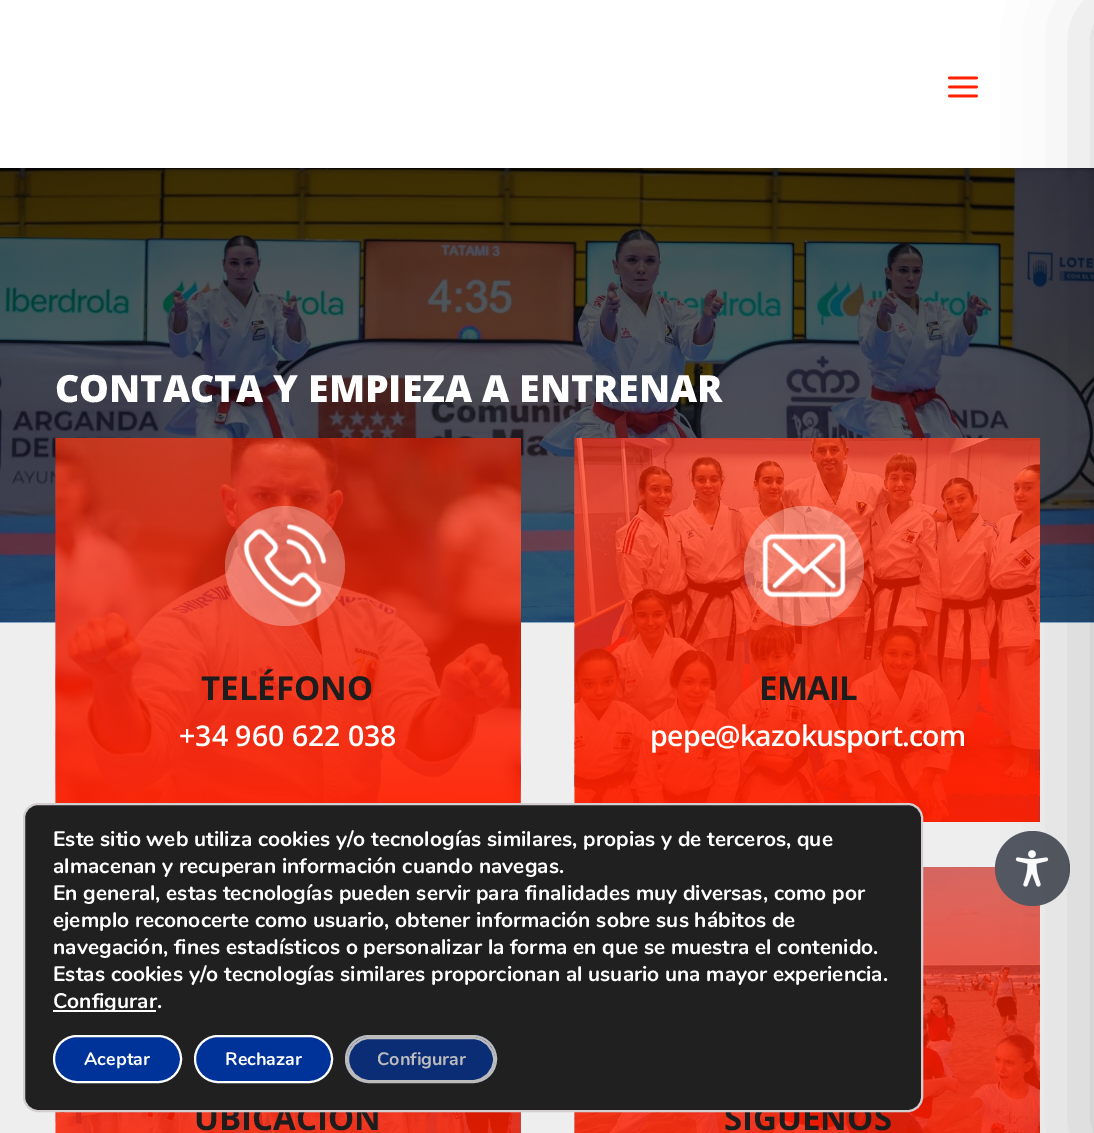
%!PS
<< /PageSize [1094 1133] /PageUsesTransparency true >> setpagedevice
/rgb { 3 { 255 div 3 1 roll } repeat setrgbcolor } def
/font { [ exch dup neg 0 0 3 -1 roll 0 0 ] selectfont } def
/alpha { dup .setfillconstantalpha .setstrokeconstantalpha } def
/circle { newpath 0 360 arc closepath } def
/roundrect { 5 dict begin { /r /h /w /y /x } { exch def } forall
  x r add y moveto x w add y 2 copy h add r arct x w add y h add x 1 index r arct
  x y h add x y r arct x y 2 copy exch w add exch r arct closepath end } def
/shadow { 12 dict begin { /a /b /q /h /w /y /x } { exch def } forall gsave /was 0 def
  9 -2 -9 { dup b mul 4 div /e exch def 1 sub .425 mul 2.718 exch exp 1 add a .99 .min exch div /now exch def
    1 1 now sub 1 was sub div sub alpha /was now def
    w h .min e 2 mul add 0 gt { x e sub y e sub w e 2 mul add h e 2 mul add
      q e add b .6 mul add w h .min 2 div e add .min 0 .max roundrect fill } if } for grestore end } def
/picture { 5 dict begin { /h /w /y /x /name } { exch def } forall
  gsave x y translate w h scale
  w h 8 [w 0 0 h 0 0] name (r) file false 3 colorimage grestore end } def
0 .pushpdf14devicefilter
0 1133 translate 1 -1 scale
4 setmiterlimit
255 255 255 rgb
0 0 1094 1133 rectfill
(img/1.rgb) 948 76 30 22 picture
(img/2.rgb) 0 168 1094 455 picture
238 238 238 rgb
0 623 1094 510 rectfill
255 32 0 rgb
520 438 1 365 rectfill
(img/3.rgb) 55 438 466 365 picture
0.3 alpha
255 255 255 rgb
285 566 60 circle fill
1 alpha
(img/4.rgb) 243 523 84 85 picture
255 32 0 rgb
1039 438 1 384 rectfill
(img/5.rgb) 574 438 466 384 picture
0.3 alpha
255 255 255 rgb
804 566 60 circle fill
1 alpha
(img/6.rgb) 762 533 84 65 picture
(img/7.rgb) 55 1112 466 21 picture
255 32 0 rgb
1039 905 1 228 rectfill
(img/8.rgb) 574 867 466 266 picture
83 88 98 rgb
1032.5 868.5 37.5 circle fill
(img/9.rgb) 1015 850 34 37 picture
0 0 0 rgb
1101 15 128 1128 0 45 0.2 shadow
/OpenSans-ExtraBold 37.5 font
255 255 255 rgb
55 402 moveto (CONTACTA Y EMPIEZA A ENTRENAR) show
/OpenSans-Bold 33 font
29 29 29 rgb
201 700 moveto (TELÉFONO) show
/OpenSans-SemiBold 28.5 font
255 255 255 rgb
179 746 moveto (+34 960 622 038) show
/OpenSans-Bold 33 font
29 29 29 rgb
759 700 moveto -0.8 0 (EMAIL) ashow
/OpenSans-SemiBold 28.5 font
255 255 255 rgb
650 746 moveto -0.8 0 (pepe@kazokusport.com) ashow
/OpenSans-Bold 33 font
29 29 29 rgb
194 1130 moveto (UBICACIÓN) show
724 1130 moveto (SÍGUENOS) show
32 32 32 rgb
24 804 898 307 14 roundrect gsave fill grestore
211 206 210 rgb
2 setlinewidth
stroke
/Nunito-Bold 21 font
255 255 255 rgb
[
  [(Este sitio web utiliza cookies y/o tecnologías similares, propias y de terceros, que) 53 846]
  [(almacenan y recuperan información cuando navegas.) 53 873]
  [(En general, estas tecnologías pueden servir para finalidades muy diversas, como por) 53 900]
  [(ejemplo reconocerte como usuario, obtener información sobre sus hábitos de) 53 927]
  [(navegación, fines estadísticos o personalizar la forma en que se muestra el contenido.) 53 954]
  [(Estas cookies y/o tecnologías similares proporcionan al usuario una mayor experiencia.) 53 981]
] { aload pop moveto show } forall
53 1010 103 2 rectfill
53 1008 moveto (Configurar.) show
0 51 153 rgb
54 1036 127 46 23 roundrect gsave fill grestore
255 255 255 rgb
stroke
/Nunito-Bold 18 font
84 1065 moveto (Aceptar) show
0 51 153 rgb
195 1036 137 46 23 roundrect gsave fill grestore
255 255 255 rgb
stroke
225 1065 moveto (Rechazar) show
10 45 117 rgb
345 1035 152 48 24 roundrect fill
188 188 188 rgb
348 1038 146 43 21.5 roundrect stroke
346 1036 150 46 23 roundrect stroke
377 1065 moveto (Configurar) show
.poppdf14devicefilter showpage
